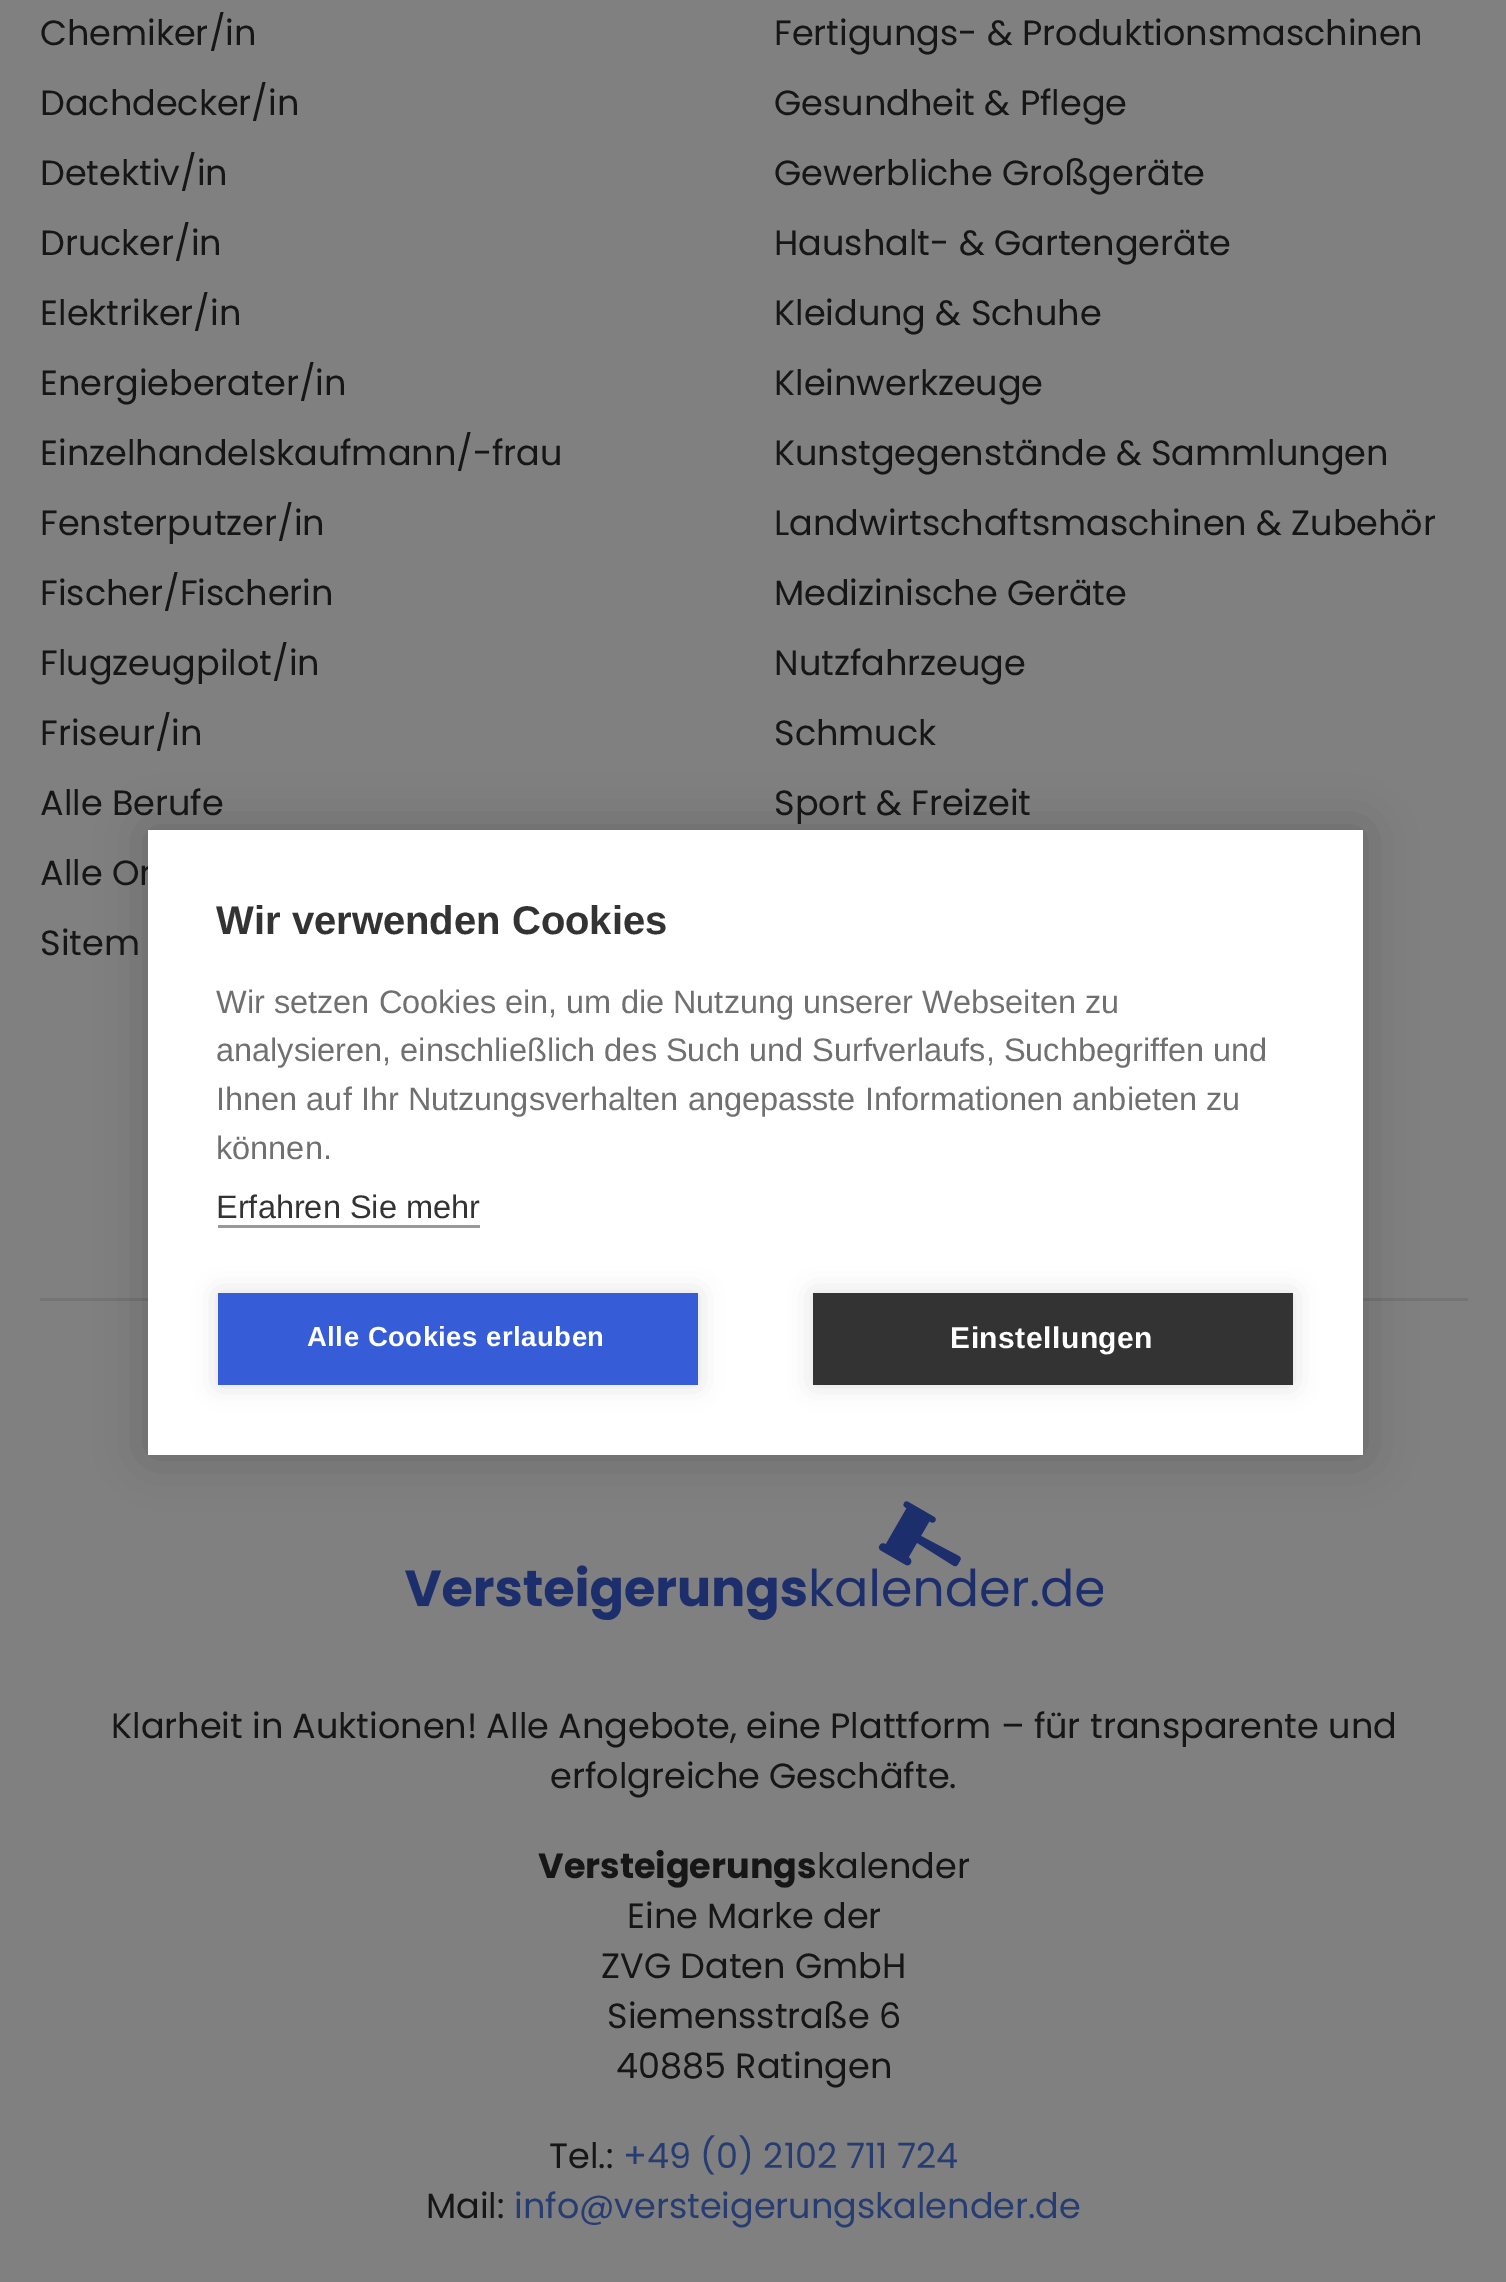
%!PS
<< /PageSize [1506 2282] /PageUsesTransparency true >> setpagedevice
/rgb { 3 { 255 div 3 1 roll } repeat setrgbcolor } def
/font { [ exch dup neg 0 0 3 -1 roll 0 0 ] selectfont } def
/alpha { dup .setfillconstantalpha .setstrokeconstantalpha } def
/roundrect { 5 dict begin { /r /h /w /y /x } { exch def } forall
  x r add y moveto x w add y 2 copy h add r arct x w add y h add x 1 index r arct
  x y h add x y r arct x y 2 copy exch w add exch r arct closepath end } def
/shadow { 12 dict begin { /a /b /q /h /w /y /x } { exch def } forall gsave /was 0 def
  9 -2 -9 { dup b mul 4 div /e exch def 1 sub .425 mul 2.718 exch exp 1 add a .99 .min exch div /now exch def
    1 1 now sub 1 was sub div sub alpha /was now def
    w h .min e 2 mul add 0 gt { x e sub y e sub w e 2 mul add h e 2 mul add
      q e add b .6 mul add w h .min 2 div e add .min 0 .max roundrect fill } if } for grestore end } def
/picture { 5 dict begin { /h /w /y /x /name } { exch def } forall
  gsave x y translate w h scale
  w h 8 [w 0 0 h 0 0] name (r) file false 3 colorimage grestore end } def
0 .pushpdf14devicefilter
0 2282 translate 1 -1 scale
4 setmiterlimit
128 128 128 rgb
0 0 1506 2282 rectfill
115 116 118 rgb
40 1298 1428 3 rectfill
(img/1.rgb) 405 1501 698 119 picture
0 0 0 rgb
148 830 1215 625 0 25 0.2 shadow
/Poppins-Regular 35 font
22 22 22 rgb
[
  [(Chemiker/in) 40 45]
  [(Dachdecker/in) 40 115]
  [(Detektiv/in) 40 185]
  [(Drucker/in) 40 255]
  [(Elektriker/in) 40 325]
  [(Energieberater/in) 40 395]
  [(Einzelhandelskaufmann/-frau) 40 465]
  [(Fensterputzer/in) 40 535]
  [(Fischer/Fischerin) 40 605]
  [(Flugzeugpilot/in) 40 675]
  [(Friseur/in) 40 745]
  [(Alle Berufe) 40 815]
  [(Alle Or) 40 885]
  [(Sitem) 40 955]
  [(Fertigungs- & Produktionsmaschinen) 774 45]
  [(Gesundheit & Pflege) 774 115]
  [(Gewerbliche Großgeräte) 774 185]
  [(Haushalt- & Gartengeräte) 774 255]
  [(Kleidung & Schuhe) 774 325]
  [(Kleinwerkzeuge) 774 395]
  [(Kunstgegenstände & Sammlungen) 774 465]
  [(Landwirtschaftsmaschinen & Zubehör) 774 535]
  [(Medizinische Geräte) 774 605]
  [(Nutzfahrzeuge) 774 675]
  [(Schmuck) 774 745]
  [(Sport & Freizeit) 774 815]
  [(Klarheit in Auktionen! Alle Angebote, eine Plattform – für transparente und) 111 1738]
  [(erfolgreiche Geschäfte.) 550 1788]
] { aload pop moveto show } forall
/Poppins-Bold 35 font
538 1878 moveto (Versteigerungs) show
/Poppins-Regular 35 font
[
  [(kalender) 817 1878]
  [(Eine Marke der) 627 1928]
  [(ZVG Daten GmbH) 601 1978]
  [(Siemensstraße 6) 607 2028]
  [(40885 Ratingen) 616 2078]
  [(Tel.:) 549 2168]
] { aload pop moveto show } forall
39 61 114 rgb
623 2168 moveto (+49 \(0\) 2102 711 724) show
22 22 22 rgb
426 2218 moveto (Mail:) show
39 61 114 rgb
514 2218 moveto (info@versteigerungskalender.de) show
255 255 255 rgb
148 830 1215 625 rectfill
/LiberationSans-Bold 40 font
51 51 51 rgb
216 934 moveto (Wir verwenden Cookies) show
/LiberationSans-Regular 32.5 font
112 112 112 rgb
[
  [(Wir setzen Cookies ein, um die Nutzung unserer Webseiten zu) 216 1013]
  [(analysieren, einschließlich des Such und Surfverlaufs, Suchbegriffen und) 216 1061]
  [(Ihnen auf Ihr Nutzungsverhalten angepasste Informationen anbieten zu) 216 1110]
  [(können.) 216 1159]
] { aload pop moveto show } forall
51 51 51 rgb
216 1218 moveto (Erfahren Sie mehr) show
153 153 153 rgb
218 1225 262 3 rectfill
0 0 0 rgb
218 1293 480 92 0 12.5 0.12 shadow
55 92 216 rgb
218 1293 480 92 rectfill
/LiberationSans-Bold 27.5 font
255 255 255 rgb
307 1346 moveto 0.5 0 (Alle Cookies erlauben) ashow
0 0 0 rgb
813 1293 480 92 0 12.5 0.12 shadow
51 51 51 rgb
813 1293 480 92 rectfill
/LiberationSans-Bold 30 font
255 255 255 rgb
950 1348 moveto 0.5 0 (Einstellungen) ashow
.poppdf14devicefilter showpage
